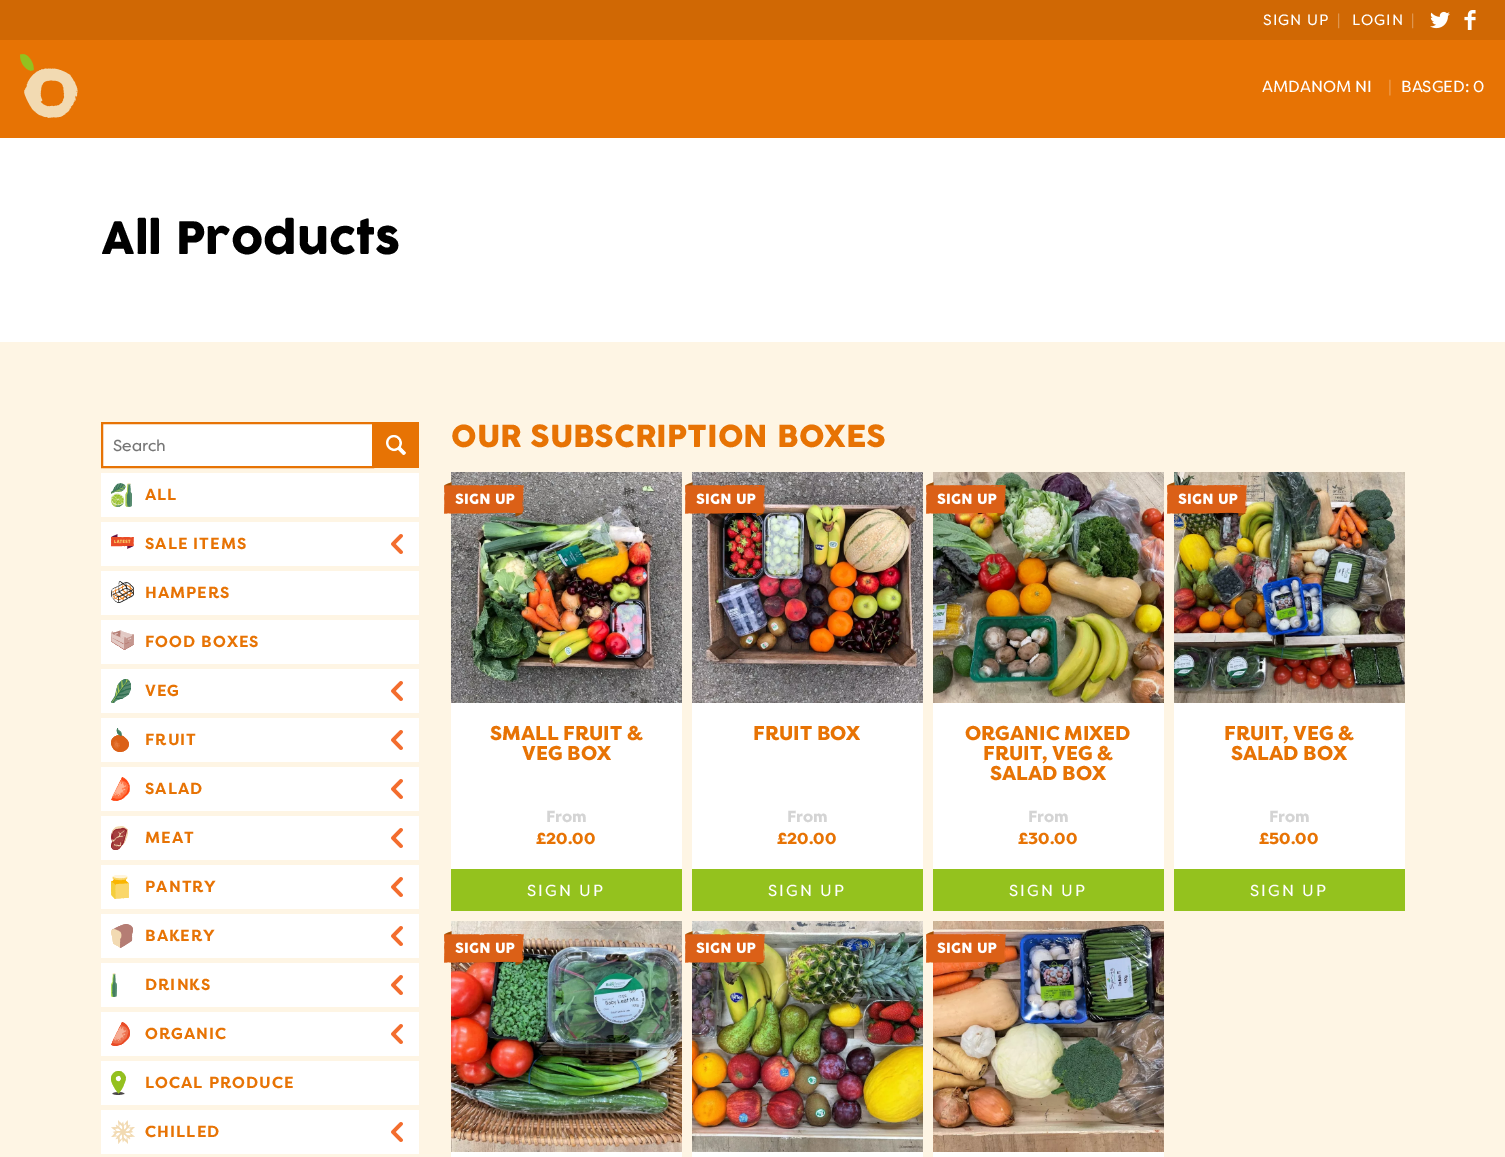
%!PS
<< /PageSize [1505 1157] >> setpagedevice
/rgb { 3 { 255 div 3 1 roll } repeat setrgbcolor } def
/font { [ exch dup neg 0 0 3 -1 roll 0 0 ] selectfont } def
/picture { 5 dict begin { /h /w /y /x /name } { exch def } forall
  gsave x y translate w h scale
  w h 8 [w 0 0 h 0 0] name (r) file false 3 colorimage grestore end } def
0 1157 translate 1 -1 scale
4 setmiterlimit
254 245 228 rgb
0 0 1505 1157 rectfill
231 115 4 rgb
0 40 1505 98 rectfill
208 104 4 rgb
0 0 1505 40 rectfill
(img/1.rgb) 1430 11 20 18 picture
(img/2.rgb) 1464 10 12 20 picture
(img/3.rgb) 20 54 58 64 picture
255 255 255 rgb
0 138 1505 204 rectfill
102 423 moveto 373 423 lineto 373 467 lineto 102 467 lineto closepath gsave fill grestore
231 115 4 rgb
2 setlinewidth
stroke
374 422 45 46 rectfill
(img/4.rgb) 386 435 20 20 picture
255 255 255 rgb
101 473 318 44 rectfill
(img/5.rgb) 111 483 21 24 picture
101 522 318 44 rectfill
(img/6.rgb) 111 534 23 15 picture
(img/7.rgb) 391 534 12 20 picture
101 571 318 44 rectfill
(img/8.rgb) 111 581 23 22 picture
101 620 318 44 rectfill
(img/9.rgb) 111 630 23 20 picture
101 669 318 44 rectfill
(img/10.rgb) 111 679 20 24 picture
(img/7.rgb) 391 681 12 20 picture
101 718 318 44 rectfill
(img/11.rgb) 111 728 18 24 picture
(img/7.rgb) 391 730 12 20 picture
101 767 318 44 rectfill
(img/12.rgb) 111 777 19 24 picture
(img/7.rgb) 391 779 12 20 picture
101 816 318 44 rectfill
(img/13.rgb) 111 826 17 24 picture
(img/7.rgb) 391 828 12 20 picture
101 865 318 44 rectfill
(img/14.rgb) 111 875 18 24 picture
(img/7.rgb) 391 877 12 20 picture
101 914 318 44 rectfill
(img/15.rgb) 111 924 22 24 picture
(img/7.rgb) 391 926 12 20 picture
101 963 318 44 rectfill
(img/16.rgb) 111 973 6 24 picture
(img/7.rgb) 391 975 12 20 picture
101 1012 318 44 rectfill
(img/17.rgb) 111 1022 19 24 picture
(img/7.rgb) 391 1024 12 20 picture
101 1061 318 44 rectfill
(img/18.rgb) 111 1071 15 24 picture
101 1110 318 44 rectfill
(img/19.rgb) 111 1120 24 24 picture
(img/7.rgb) 391 1122 12 20 picture
451 703 231 166 rectfill
(img/20.rgb) 451 472 231 231 picture
(img/21.rgb) 444 482 80 35 picture
148 194 30 rgb
451 869 231 42 rectfill
255 255 255 rgb
692 703 231 166 rectfill
(img/22.rgb) 692 472 231 231 picture
(img/23.rgb) 685 482 80 35 picture
148 194 30 rgb
692 869 231 42 rectfill
255 255 255 rgb
933 703 231 166 rectfill
(img/24.rgb) 933 472 231 231 picture
(img/25.rgb) 926 482 80 35 picture
148 194 30 rgb
933 869 231 42 rectfill
255 255 255 rgb
1174 703 231 166 rectfill
(img/26.rgb) 1174 472 231 231 picture
(img/27.rgb) 1167 482 80 35 picture
148 194 30 rgb
1174 869 231 42 rectfill
255 255 255 rgb
451 1152 231 5 rectfill
(img/28.rgb) 451 921 231 231 picture
(img/29.rgb) 444 931 80 35 picture
692 1152 231 5 rectfill
(img/30.rgb) 692 921 231 231 picture
(img/31.rgb) 685 931 80 35 picture
933 1152 231 5 rectfill
(img/32.rgb) 933 921 231 231 picture
(img/33.rgb) 926 931 80 35 picture
/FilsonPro-Regular 15 font
1263 25 moveto 1 0 (SIGN UP) ashow
222 149 79 rgb
1337 25 moveto 1 0 (|) ashow
255 255 255 rgb
1352 25 moveto 1 0 (LOGIN) ashow
222 149 79 rgb
1411 25 moveto 1 0 (|) ashow
/FilsonPro-Regular 16 font
255 255 255 rgb
1262 92 moveto (AMDANOM NI) show
238 157 79 rgb
1388 92 moveto (|) show
255 255 255 rgb
1401 92 moveto (BASGED: 0) show
/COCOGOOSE-Regular 44 font
0 0 0 rgb
101 254 moveto (All Products) show
/FilsonPro-Regular 16 font
117 117 117 rgb
113 451 moveto (Search) show
/FilsonPro-Bold 16 font
231 115 4 rgb
145 500 moveto 1 0 (ALL) ashow
145 549 moveto 1 0 (SALE ITEMS) ashow
145 598 moveto 1 0 (HAMPERS) ashow
145 647 moveto 1 0 (FOOD BOXES) ashow
145 696 moveto 1 0 (VEG) ashow
145 745 moveto 1 0 (FRUIT) ashow
145 794 moveto 1 0 (SALAD) ashow
145 843 moveto 1 0 (MEAT) ashow
145 892 moveto 1 0 (PANTRY) ashow
145 941 moveto 1 0 (BAKERY) ashow
145 990 moveto 1 0 (DRINKS) ashow
145 1039 moveto 1 0 (ORGANIC) ashow
145 1088 moveto 1 0 (LOCAL PRODUCE) ashow
145 1137 moveto 1 0 (CHILLED) ashow
/COCOGOOSE-Regular 30 font
451 447 moveto (OUR SUBSCRIPTION BOXES) show
/FilsonPro-Black 20 font
490 740 moveto (SMALL FRUIT &) show
522 760 moveto (VEG BOX) show
/FilsonPro-Black 16 font
212 212 212 rgb
546 822 moveto (From) show
231 115 4 rgb
536 844 moveto (£20.00) show
/FilsonPro-Regular 16 font
255 255 255 rgb
527 896 moveto 2 0 (SIGN UP) ashow
/FilsonPro-Black 20 font
231 115 4 rgb
753 740 moveto (FRUIT BOX) show
/FilsonPro-Black 16 font
212 212 212 rgb
787 822 moveto (From) show
231 115 4 rgb
777 844 moveto (£20.00) show
/FilsonPro-Regular 16 font
255 255 255 rgb
768 896 moveto 2 0 (SIGN UP) ashow
/FilsonPro-Black 20 font
231 115 4 rgb
[
  [(ORGANIC MIXED) 965 740]
  [(FRUIT, VEG &) 983 760]
  [(SALAD BOX) 990 780]
] { aload pop moveto show } forall
/FilsonPro-Black 16 font
212 212 212 rgb
1028 822 moveto (From) show
231 115 4 rgb
1018 844 moveto (£30.00) show
/FilsonPro-Regular 16 font
255 255 255 rgb
1009 896 moveto 2 0 (SIGN UP) ashow
/FilsonPro-Black 20 font
231 115 4 rgb
1224 740 moveto (FRUIT, VEG &) show
1231 760 moveto (SALAD BOX) show
/FilsonPro-Black 16 font
212 212 212 rgb
1269 822 moveto (From) show
231 115 4 rgb
1259 844 moveto (£50.00) show
/FilsonPro-Regular 16 font
255 255 255 rgb
1250 896 moveto 2 0 (SIGN UP) ashow
showpage
